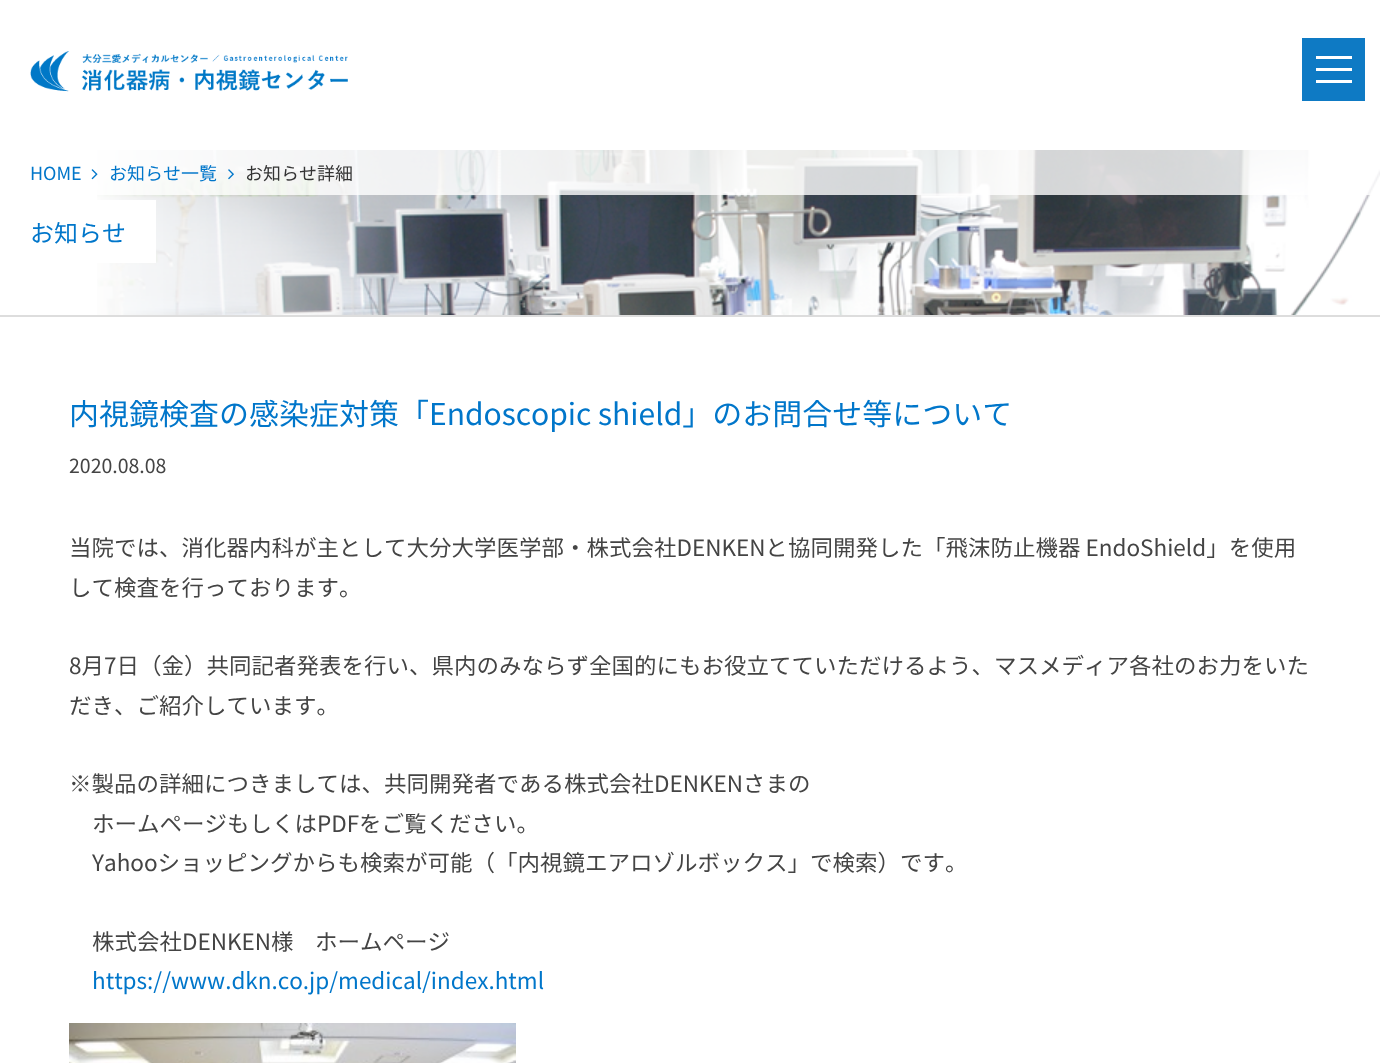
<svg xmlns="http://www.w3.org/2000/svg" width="1380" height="1063">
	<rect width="100%" height="100%" fill="#FFFFFF" />
	<image x="30" y="51" width="318" height="41" href="assets/img1.png" />
	<rect x="1302" y="38" width="63" height="63" fill="#0E7AC4" />
	<rect x="1316" y="56" width="36" height="3" fill="#FFFFFF" />
	<rect x="1316" y="68" width="36" height="3" fill="#FFFFFF" />
	<rect x="1316" y="80" width="36" height="3" fill="#FFFFFF" />
	<image x="97" y="150" width="1283" height="165" href="assets/img2.png" />
	<rect x="0" y="315" width="1380" height="2" fill="#DDDDDD" />
	<rect x="97" y="150" width="1283" height="45" fill="#FFFFFF" fill-opacity="0.8" />
	<text x="30" y="180" font-family="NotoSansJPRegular" font-size="18" fill="#0076CA">HOME</text>
	<image x="91" y="169" width="7" height="11" href="assets/img3.png" />
	<text x="109" y="180" font-family="NotoSansJPRegular" font-size="18" fill="#0076CA">お知らせ一覧</text>
	<image x="228" y="169" width="6" height="11" href="assets/img4.png" />
	<text x="245" y="180" font-family="NotoSansJPRegular" font-size="18" fill="#333333">お知らせ詳細</text>
	<rect x="97" y="200" width="59" height="63" fill="#FFFFFF" />
	<text x="30" y="242" font-family="NotoSansJPRegular" font-size="24" fill="#0076CA">お知らせ</text>
	<text x="69" y="425" font-family="NotoSansJPRegular" font-size="30" fill="#0076CA">内視鏡検査の感染症対策「Endoscopic shield」のお問合せ等について</text>
	<text x="69" y="473" font-family="NotoSansJPRegular" font-size="19.5" fill="#444444">2020.08.08</text>
	<g font-family="NotoSansJPRegular" font-size="22.5" fill="#444444">
		<text x="69" y="556">当院では、消化器内科が主として大分大学医学部・株式会社DENKENと協同開発した「飛沫防止機器 EndoShield」を使用</text>
		<text x="69" y="596">して検査を行っております。</text>
		<text x="69" y="674">8月7日（金）共同記者発表を行い、県内のみならず全国的にもお役立てていただけるよう、マスメディア各社のお力をいた</text>
		<text x="69" y="714">だき、ご紹介しています。</text>
		<text x="69" y="792">※製品の詳細につきましては、共同開発者である株式会社DENKENさまの</text>
		<text x="92" y="832">ホームページもしくはPDFをご覧ください。</text>
		<text x="92" y="871">Yahooショッピングからも検索が可能（「内視鏡エアロゾルボックス」で検索）です。</text>
		<text x="92" y="950">株式会社DENKEN様</text>
		<text x="315" y="950">ホームページ</text>
	</g>
	<text x="92" y="989" font-family="NotoSansJPRegular" font-size="22.5" fill="#0076CA">https://www.dkn.co.jp/medical/index.html</text>
	<image x="69" y="1023" width="447" height="40" href="assets/img5.png" />
</svg>
